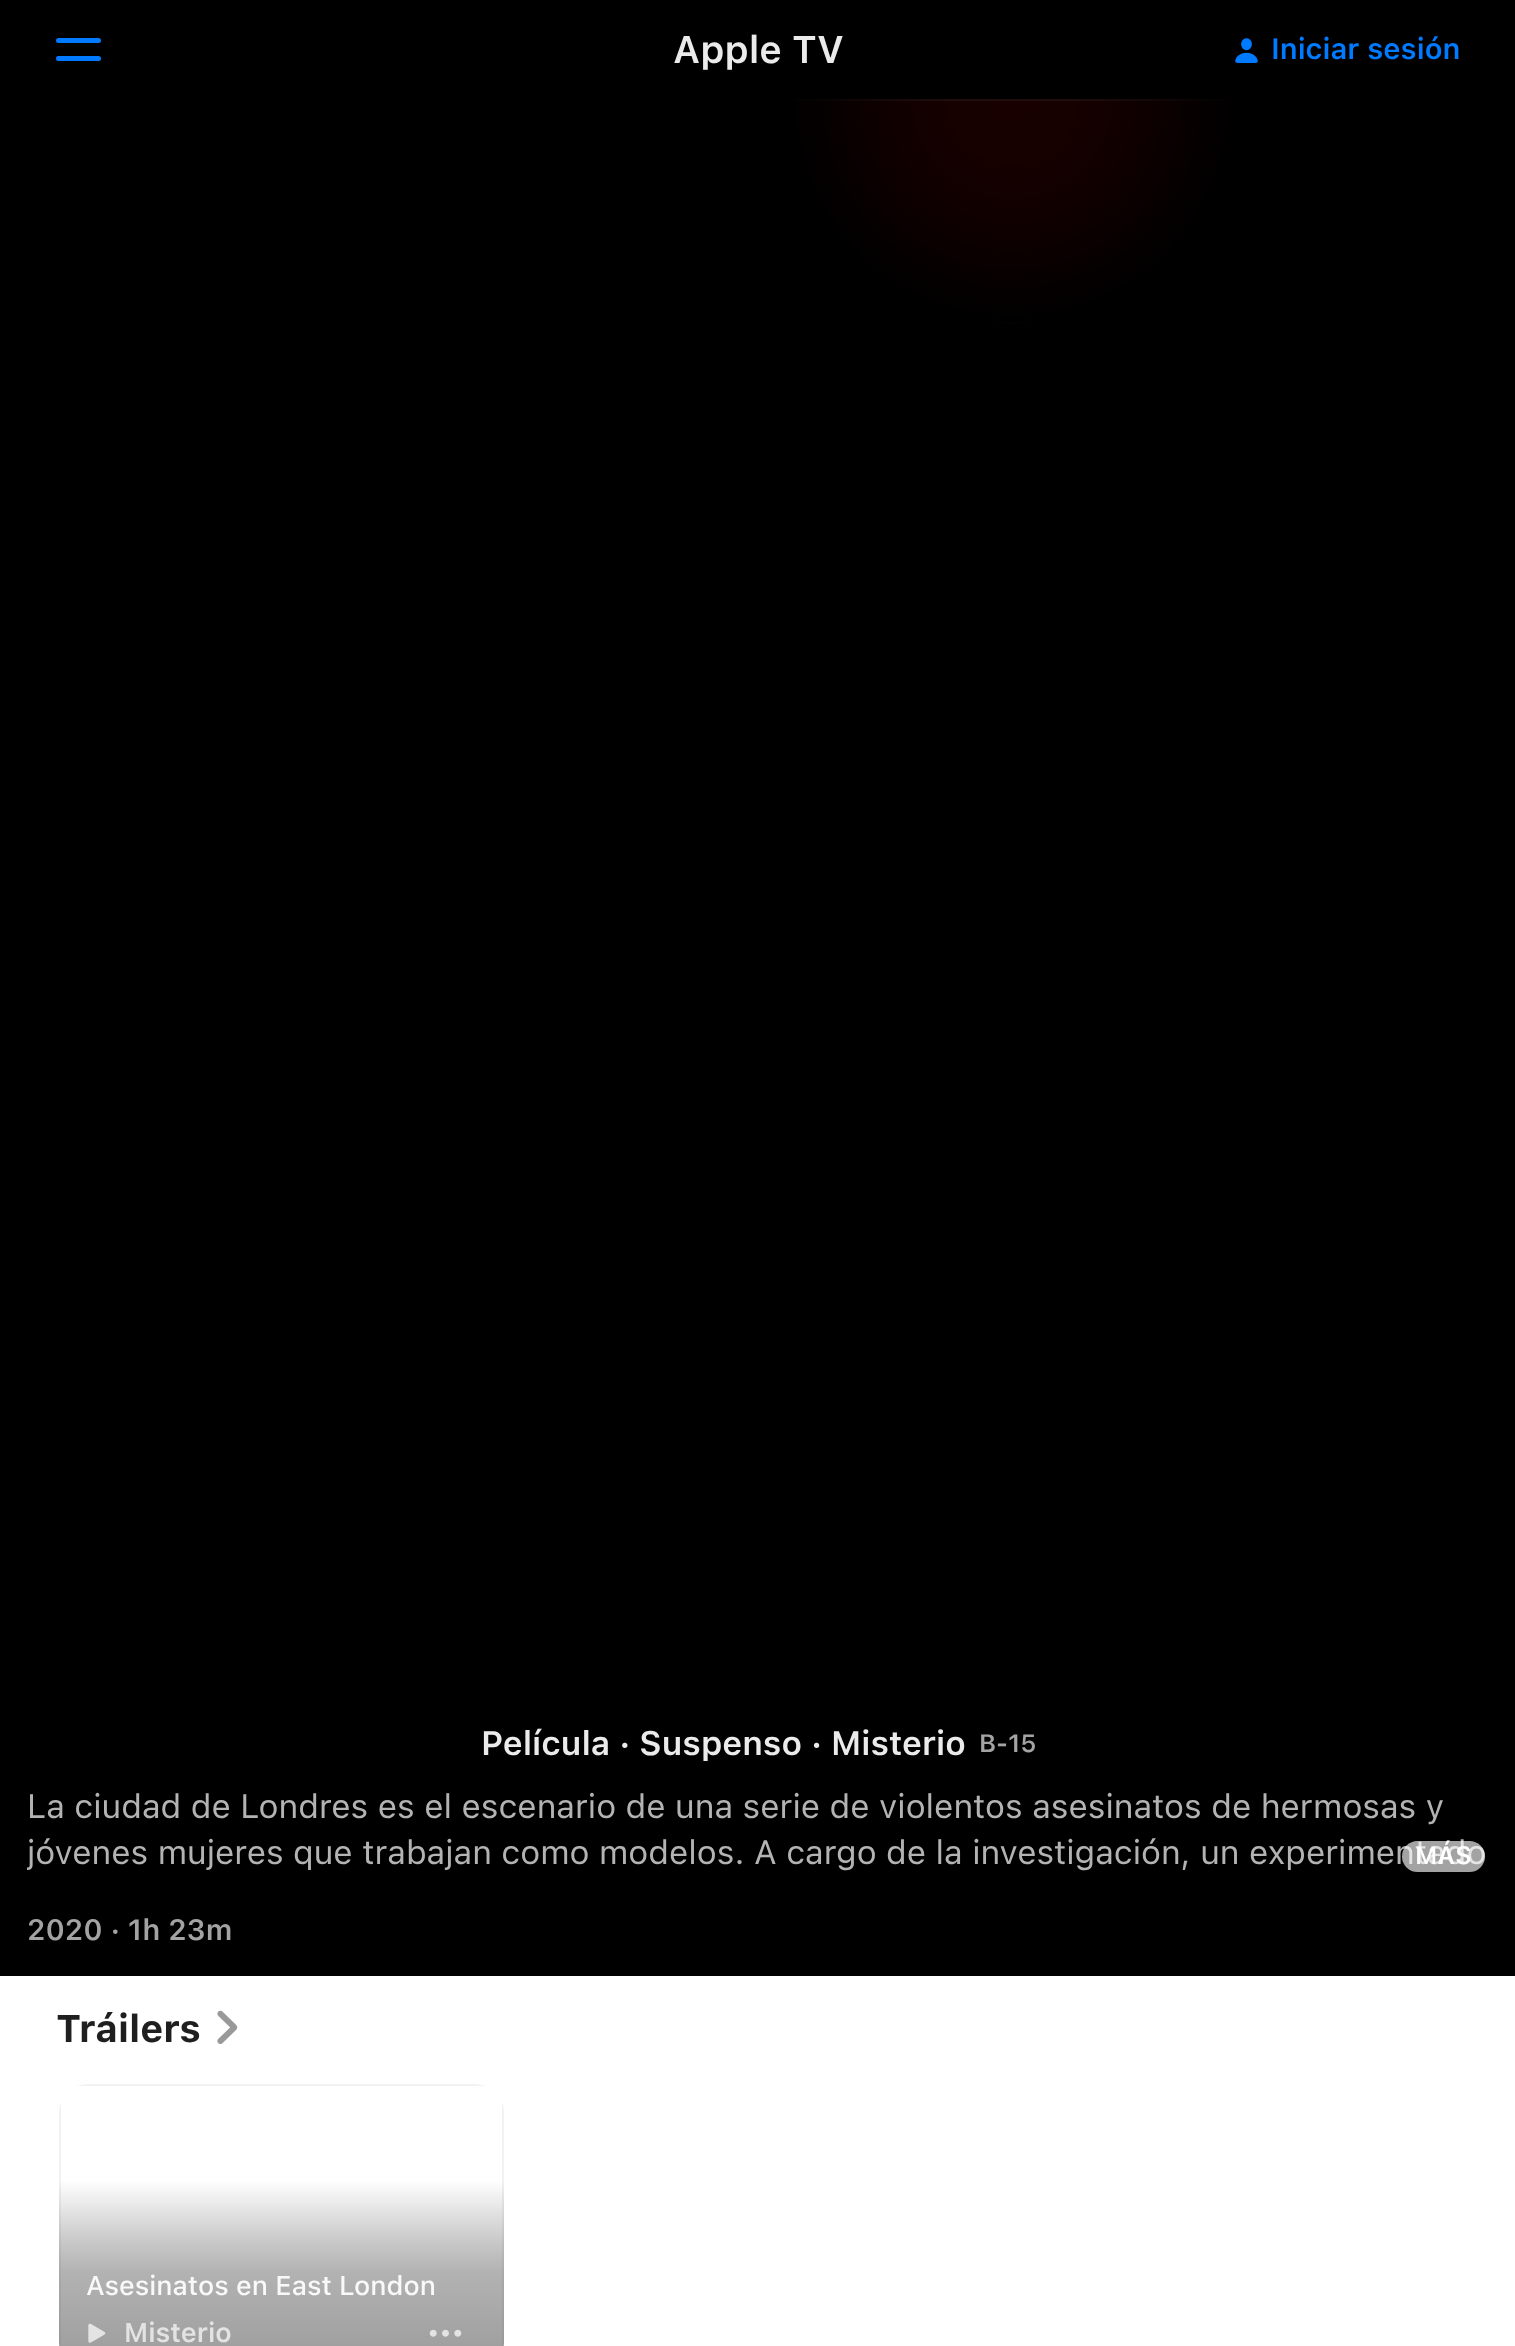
<svg xmlns="http://www.w3.org/2000/svg" width="1515" height="2346">
	<defs>
		<clipPath id="clip1"><rect x="0" y="99" width="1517" height="1877" /></clipPath>
		<radialGradient id="g1" gradientUnits="userSpaceOnUse" cx="1012" cy="99" r="225"><stop offset="0" stop-color="#000000" stop-opacity="0" /><stop offset="0.19" stop-color="#000000" stop-opacity="0.04" /><stop offset="0.36" stop-color="#000000" stop-opacity="0.15" /><stop offset="0.51" stop-color="#000000" stop-opacity="0.3" /><stop offset="0.53" stop-color="#000000" stop-opacity="0.33" /><stop offset="0.65" stop-color="#000000" stop-opacity="0.49" /><stop offset="0.77" stop-color="#000000" stop-opacity="0.67" /><stop offset="0.89" stop-color="#000000" stop-opacity="0.85" /><stop offset="1" stop-color="#000000" /></radialGradient>
		<clipPath id="clip2"><rect x="27" y="1784" width="1463" height="93" /></clipPath>
		<linearGradient id="g2" gradientUnits="userSpaceOnUse" x1="281" y1="2180" x2="281" y2="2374"><stop offset="0" stop-color="#000000" stop-opacity="0" /><stop offset="0.19" stop-color="#000000" stop-opacity="0.13" /><stop offset="0.31" stop-color="#000000" stop-opacity="0.21" /><stop offset="0.47" stop-color="#000000" stop-opacity="0.3" /><stop offset="1" stop-color="#000000" stop-opacity="0.4" /></linearGradient>
	</defs>
	<rect width="100%" height="100%" fill="#FFFFFF" />
	<rect x="0" y="0" width="1515" height="99" fill="#000000" />
	<rect x="56" y="38" width="45" height="5" rx="2.5" fill="#007AFF" />
	<rect x="56" y="56" width="45" height="5" rx="2.5" fill="#007AFF" />
	<text x="673" y="63" font-family="SF" font-size="38.25" font-weight="600" fill="#EBEBEB">Apple TV</text>
	<image x="1235" y="38" width="23" height="25" href="assets/img1.png" />
	<text x="1271" y="59" font-family="SF" font-size="29.25" font-weight="600" fill="#007AFF">Iniciar sesión</text>
	<rect x="788" y="101" width="448" height="221" fill="#180000" />
	<g clip-path="url(#clip1)">
		<rect x="1" y="100" width="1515" height="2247" fill="none" stroke="#220D0D" stroke-width="2" />
	</g>
	<rect x="0" y="99" width="1515" height="1877" fill="url(#g1)" />
	<text x="481" y="1755" font-family="SF" font-size="33.75" font-weight="600" fill="#EBEBEB">Película · Suspenso · Misterio</text>
	<text x="979" y="1752" font-family="SF" font-size="25" font-weight="600" fill="#A3A3A3">B-15</text>
	<text x="27" y="1818" font-family="SF" font-size="33.75" fill="#B3B3B3">La ciudad de Londres es el escenario de una serie de violentos asesinatos de hermosas y</text>
	<g clip-path="url(#clip2)">
		<text x="27" y="1864" font-family="SF" font-size="33.75" fill="#B3B3B3">jóvenes mujeres que trabajan como modelos. A cargo de la investigación, un experimentado</text>
	</g>
	<rect x="1402" y="1841" width="83" height="31" rx="15.5" fill="#FFFFFF" fill-opacity="0.64" />
	<text x="1415" y="1864" font-family="SF" font-size="25" font-weight="600" fill="#FFFFFF">MÁS</text>
	<text x="27" y="1940" font-family="SF" font-size="29.25" font-weight="600" fill="#A3A3A3">2020 · 1h 23m</text>
	<text x="56" y="2042" font-family="SF" font-size="38.25" font-weight="700" fill="#1F1F1F">Tráilers</text>
	<image x="217" y="2010" width="21" height="34" href="assets/img2.png" />
	<path d="M59 2113V2345C59 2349 60 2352 61 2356V2102C60 2106 59 2109 59 2113ZM88 2084C84 2084 81 2085 77 2086H486C482 2085 479 2084 475 2084ZM504 2113C504 2109 503 2106 502 2102V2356C503 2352 504 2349 504 2345ZM475 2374C479 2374 482 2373 486 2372H77C81 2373 84 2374 88 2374Z" fill="#F2F2F2" fill-rule="evenodd" />
	<path d="M59 2180H504V2342C504 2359.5 489.5 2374 472 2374H91C73.5 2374 59 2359.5 59 2342Z" fill="url(#g2)" />
	<text x="86" y="2295" font-family="SF" font-size="27" font-weight="500" fill="#F9F9F9">Asesinatos en East London</text>
	<image x="88" y="2323" width="18" height="20" href="assets/img3.png" />
	<text x="124" y="2342" font-family="SF" font-size="27" font-weight="600" fill="#E3E3E3">Misterio</text>
	<image x="429" y="2329" width="33" height="8" href="assets/img4.png" />
</svg>
